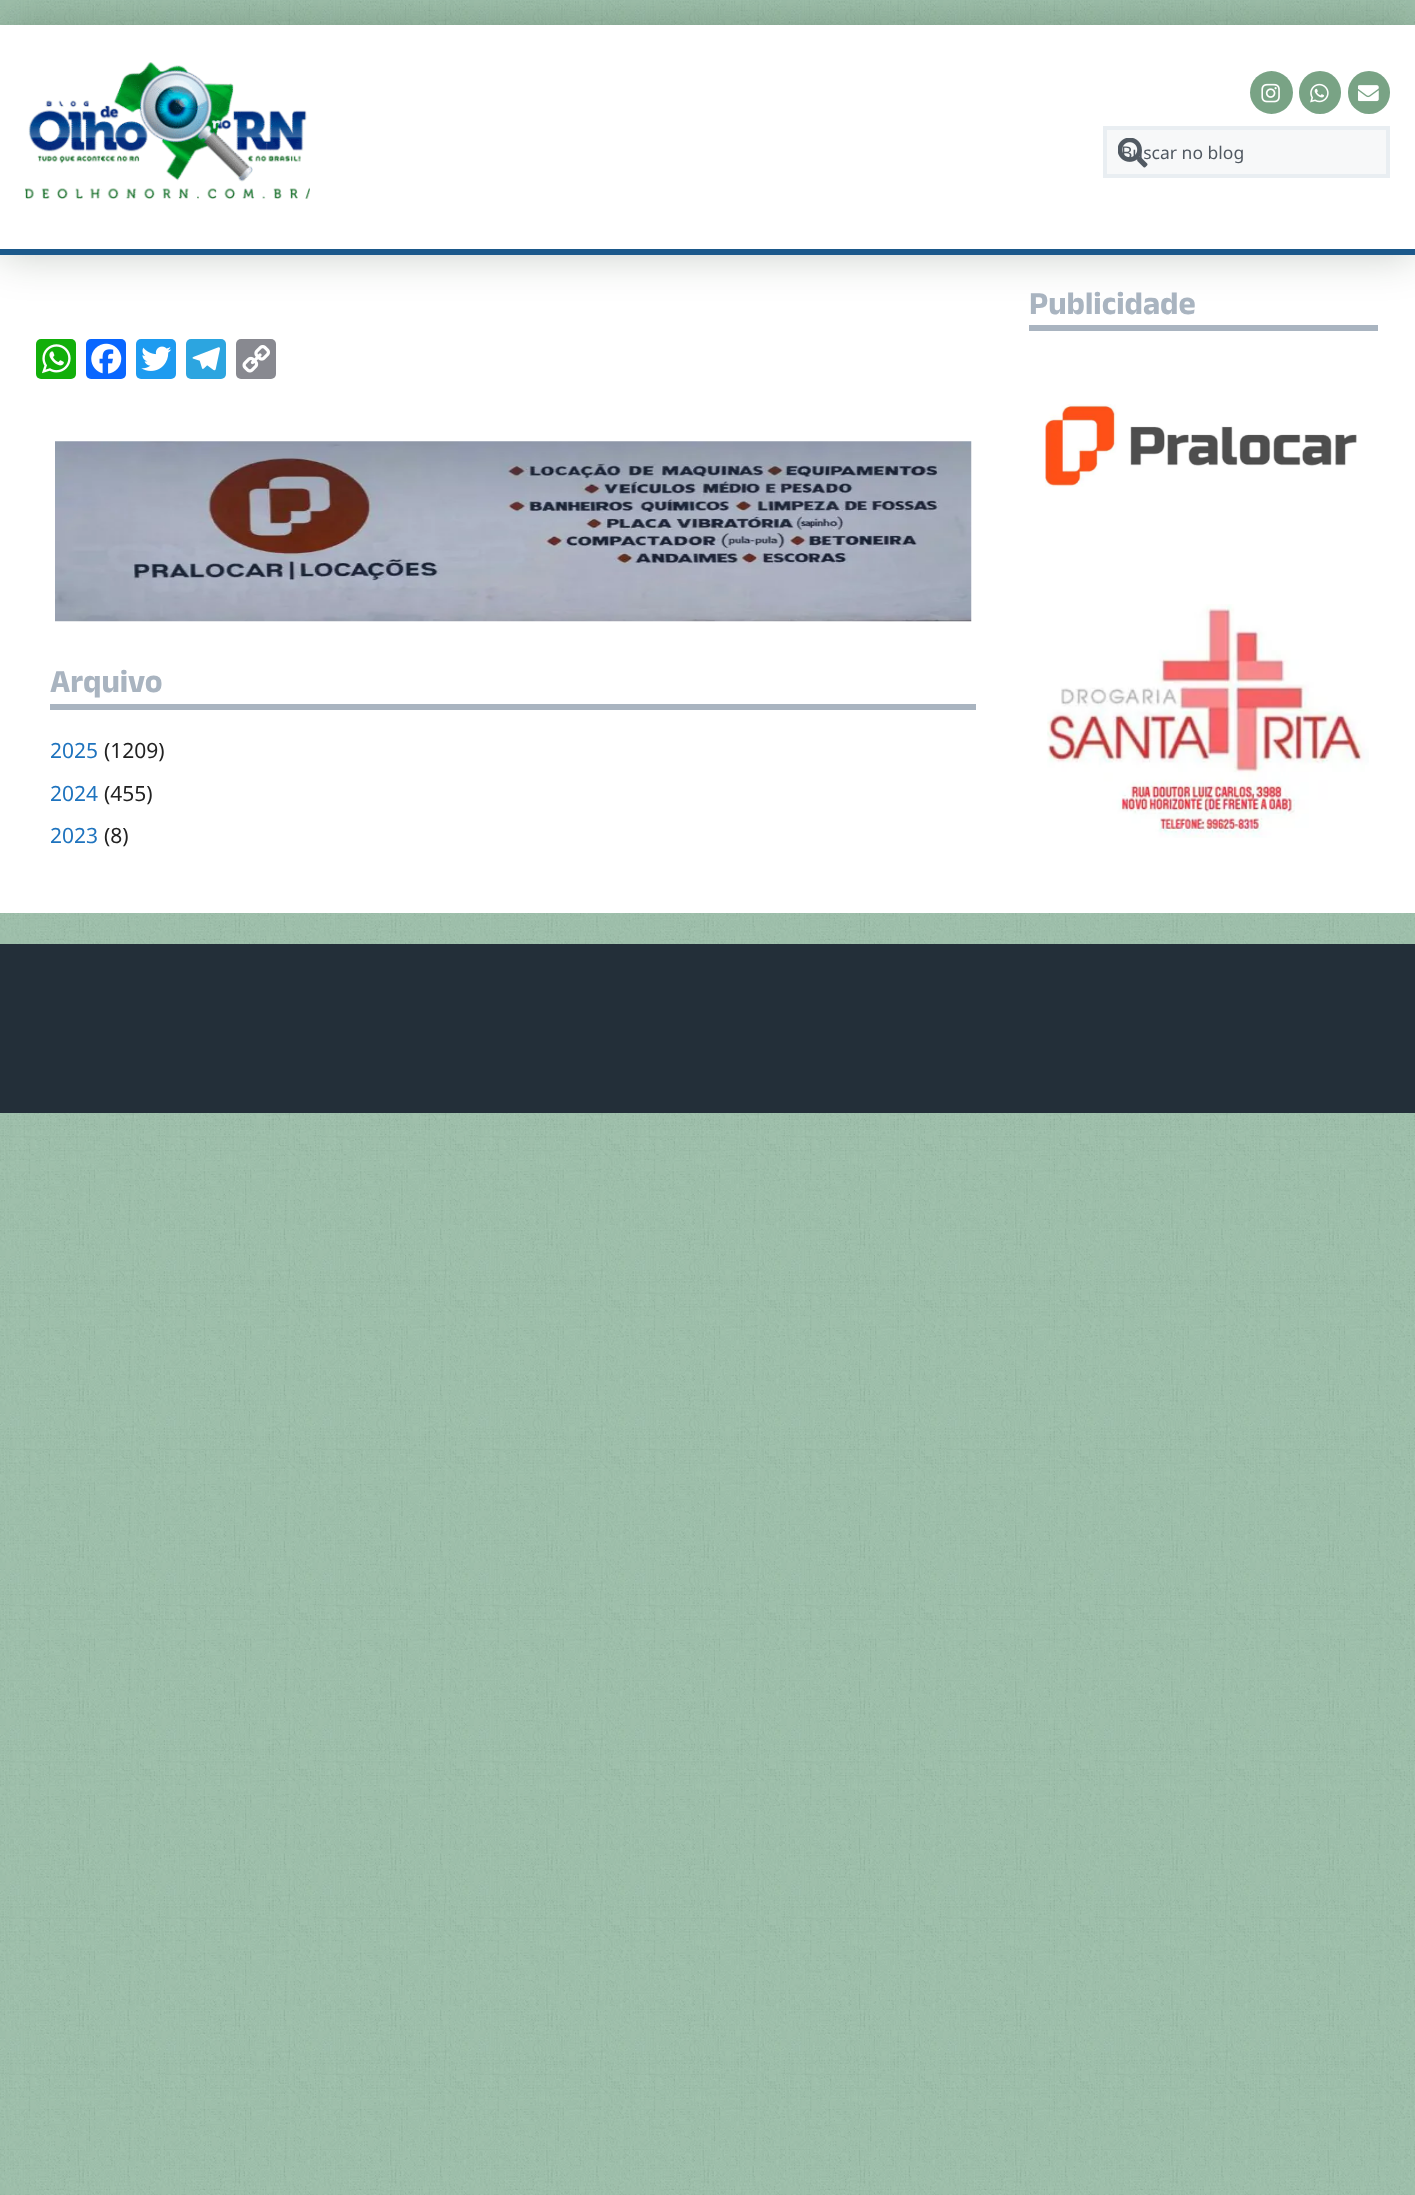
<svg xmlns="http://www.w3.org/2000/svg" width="1415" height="2195">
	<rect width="100%" height="100%" fill="#FFFFFF" />
	<image x="0" y="0" width="1415" height="2195" href="assets/img1.png" />
	<rect x="0" y="255" width="1415" height="658" fill="#FFFFFF" />
	<rect x="0" y="25" width="1415" height="230" fill="#011D01" fill-opacity="0.22" filter="blur(22px)" />
	<rect x="0" y="25" width="1415" height="224" fill="#FFFFFF" />
	<image x="25" y="62" width="285" height="137" href="assets/img2.png" />
	<circle cx="1271.5" cy="92.5" r="21.5" fill="#79A385" />
	<image x="1261" y="83" width="19" height="20" href="assets/img3.png" />
	<rect x="1299" y="71" width="42" height="43" rx="21" fill="#79A385" />
	<image x="1310" y="83" width="19" height="20" href="assets/img4.png" />
	<rect x="1348" y="71" width="42" height="43" rx="21" fill="#79A385" />
	<image x="1358" y="85" width="21" height="17" href="assets/img5.png" />
	<rect x="1105" y="128" width="283" height="48" fill="#F7F8F9" stroke="#E9EEF2" stroke-width="4" />
	<text x="1121" y="159" font-family="Noto Sans" font-size="17.5" fill="#515962">Buscar no blog</text>
	<image x="1118" y="138" width="30" height="30" href="assets/img6.png" />
	<rect x="0" y="249" width="1415" height="6" fill="#1B598B" />
	<rect x="1029" y="325" width="349" height="6" fill="#A9B4C0" />
	<text x="1029" y="314" font-family="Anek Gurmukhi" font-size="32.5" font-weight="700" fill="#A9B4C0">Publicidade</text>
	<image x="1045" y="404" width="312" height="83" href="assets/img7.png" />
	<image x="1047" y="604" width="322" height="234" href="assets/img8.png" />
	<rect x="36" y="339" width="40" height="40" rx="5" fill="#12AF0A" />
	<image x="42" y="344" width="29" height="30" href="assets/img9.png" />
	<rect x="86" y="339" width="40" height="40" rx="5" fill="#0866FF" />
	<image x="91" y="343" width="31" height="31" href="assets/img10.png" />
	<rect x="136" y="339" width="40" height="40" rx="5" fill="#1D9BF0" />
	<image x="141" y="346" width="31" height="25" href="assets/img11.png" />
	<rect x="186" y="339" width="40" height="40" rx="5" fill="#2CA5E0" />
	<image x="192" y="347" width="28" height="24" href="assets/img12.png" />
	<rect x="236" y="339" width="40" height="40" rx="5" fill="#888990" />
	<image x="242" y="345" width="28" height="28" href="assets/img13.png" />
	<image x="55" y="441" width="917" height="181" href="assets/img14.png" />
	<rect x="50" y="704" width="926" height="6" fill="#A9B4C0" />
	<text x="50" y="692" font-family="Anek Gurmukhi" font-size="32.5" font-weight="700" fill="#A9B4C0">Arquivo</text>
	<text x="50" y="758" font-family="Noto Sans" font-size="21" fill="#1E73BE">2025</text>
	<text x="104" y="758" font-family="Noto Sans" font-size="21" fill="#222222">(1209)</text>
	<text x="50" y="801" font-family="Noto Sans" font-size="21" fill="#1E73BE">2024</text>
	<text x="104" y="801" font-family="Noto Sans" font-size="21" fill="#222222">(455)</text>
	<text x="50" y="843" font-family="Noto Sans" font-size="21" fill="#1E73BE">2023</text>
	<text x="104" y="843" font-family="Noto Sans" font-size="21" fill="#222222">(8)</text>
	<rect x="0" y="944" width="1415" height="169" fill="#232F39" />
</svg>
